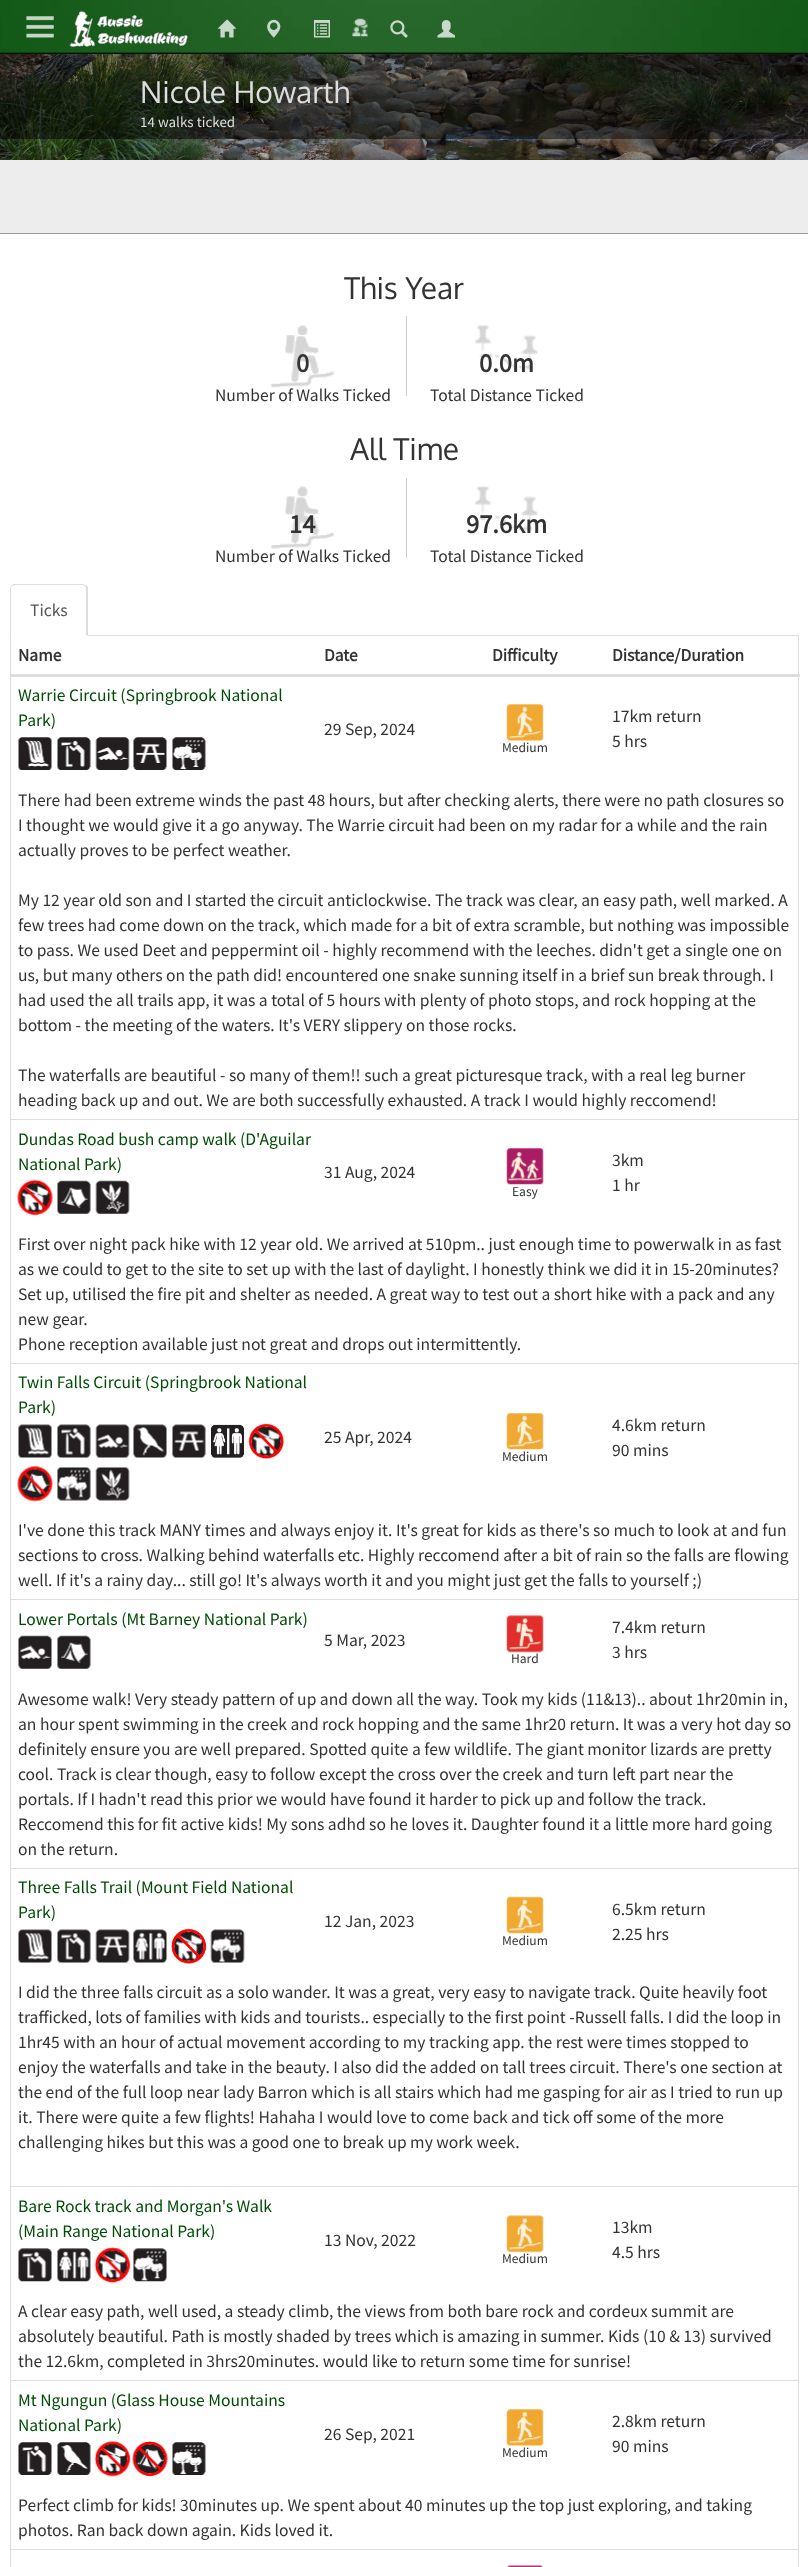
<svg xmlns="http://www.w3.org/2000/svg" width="808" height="2567">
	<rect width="100%" height="100%" fill="#FFFFFF" />
	<rect x="0" y="53" width="808" height="1" fill="#080808" />
	<rect x="0" y="52" width="808" height="1" fill="#004C05" />
	<image x="0" y="0" width="808" height="52" href="assets/img1.png" />
	<image x="26" y="16" width="28" height="22" href="assets/img2.png" />
	<image x="69" y="11" width="119" height="36" href="assets/img3.png" />
	<image x="217" y="19" width="20" height="19" href="assets/img4.png" />
	<image x="267" y="19" width="14" height="19" href="assets/img5.png" />
	<image x="313" y="20" width="17" height="18" href="assets/img6.png" />
	<image x="352" y="18" width="16" height="19" href="assets/img7.png" />
	<image x="390" y="20" width="18" height="18" href="assets/img8.png" />
	<image x="437" y="20" width="18" height="18" href="assets/img9.png" />
	<image x="0" y="54" width="808" height="106" href="assets/img10.png" />
	<rect x="0" y="54" width="808" height="85" fill="#000000" fill-opacity="0.5" />
	<text x="140" y="103" font-family="Oxygen" font-size="30" fill="#DDDDDD">Nicole Howarth</text>
	<text x="140" y="127" font-family="Source Sans Pro" font-size="15" fill="#DDDDDD">14 walks ticked</text>
	<rect x="0" y="160" width="808" height="73" fill="#EEEDED" />
	<rect x="0" y="233" width="808" height="1" fill="#999999" />
	<text x="344" y="299" font-family="Oxygen" font-size="30" fill="#333333">This Year</text>
	<image x="271" y="325" width="63" height="63" href="assets/img11.png" />
	<text x="296" y="372" font-family="Source Sans Pro" font-size="26.5" font-weight="700" fill="#333333">0</text>
	<text x="215" y="401" font-family="Source Sans Pro" font-size="17.5" fill="#333333">Number of Walks Ticked</text>
	<image x="475" y="325" width="63" height="45" href="assets/img12.png" />
	<rect x="406" y="316" width="1" height="80" fill="#CCCCCC" />
	<text x="479" y="372" font-family="Source Sans Pro" font-size="26.5" font-weight="700" fill="#333333">0.0m</text>
	<text x="430" y="401" font-family="Source Sans Pro" font-size="17.5" fill="#333333">Total Distance Ticked</text>
	<text x="350" y="460" font-family="Oxygen" font-size="30" fill="#333333">All Time</text>
	<image x="271" y="486" width="63" height="63" href="assets/img13.png" />
	<text x="289" y="533" font-family="Source Sans Pro" font-size="26.5" font-weight="700" fill="#333333">14</text>
	<text x="215" y="562" font-family="Source Sans Pro" font-size="17.5" fill="#333333">Number of Walks Ticked</text>
	<image x="475" y="486" width="63" height="46" href="assets/img14.png" />
	<rect x="406" y="478" width="1" height="80" fill="#CCCCCC" />
	<text x="466" y="533" font-family="Source Sans Pro" font-size="26.5" font-weight="700" fill="#333333">97.6km</text>
	<text x="430" y="562" font-family="Source Sans Pro" font-size="17.5" fill="#333333">Total Distance Ticked</text>
	<rect x="88" y="635" width="711" height="1" fill="#DDDDDD" />
	<path d="M15 584C14 584 12 584 12 585V586L15 585H83L85 586L86 585L82 584Z" fill="#DDDDDD" />
	<path d="M86 585L88 587V636L86 635V589C86 588 86 587 85 586Z" fill="#DDDDDD" />
	<path d="M10 589V636L11 635V588L12 586V585C11 586 10 587 10 589Z" fill="#DDDDDD" />
	<text x="30" y="616" font-family="Source Sans Pro" font-size="17.5" fill="#555555">Ticks</text>
	<rect x="798" y="636" width="1" height="1931" fill="#DDDDDD" />
	<rect x="10" y="636" width="1" height="1931" fill="#DDDDDD" />
	<g font-family="Source Sans Pro" font-size="17.5" font-weight="700" fill="#333333">
		<text x="18" y="661">Name</text>
		<text x="324" y="661">Date</text>
		<text x="492" y="661">Difficulty</text>
		<text x="612" y="661">Distance/Duration</text>
	</g>
	<rect x="10" y="674" width="790" height="3" fill="#DDDDDD" />
	<g font-family="Source Sans Pro" font-size="17.5" fill="#004C05">
		<text x="18" y="701">Warrie Circuit (Springbrook National</text>
		<text x="18" y="726">Park)</text>
	</g>
	<image x="18" y="737" width="34" height="33" href="assets/img15.png" />
	<image x="57" y="737" width="34" height="33" href="assets/img16.png" />
	<image x="95" y="737" width="35" height="33" href="assets/img17.png" />
	<image x="133" y="737" width="34" height="33" href="assets/img18.png" />
	<image x="172" y="737" width="34" height="33" href="assets/img19.png" />
	<g font-family="Source Sans Pro" font-size="17.5" fill="#333333">
		<text x="324" y="735">29 Sep, 2024</text>
		<text x="612" y="722">17km return</text>
		<text x="612" y="747">5 hrs</text>
	</g>
	<image x="506" y="704" width="38" height="38" href="assets/img20.png" />
	<text x="502" y="752" font-family="Source Sans Pro" font-size="13.5" fill="#333333">Medium</text>
	<g font-family="Source Sans Pro" font-size="17.5" fill="#333333">
		<text x="18" y="806">There had been extreme winds the past 48 hours, but after checking alerts, there were no path closures so</text>
		<text x="18" y="831">I thought we would give it a go anyway. The Warrie circuit had been on my radar for a while and the rain</text>
		<text x="18" y="856">actually proves to be perfect weather.</text>
		<text x="18" y="906">My 12 year old son and I started the circuit anticlockwise. The track was clear, an easy path, well marked. A</text>
		<text x="18" y="931">few trees had come down on the track, which made for a bit of extra scramble, but nothing was impossible</text>
		<text x="18" y="956">to pass. We used Deet and peppermint oil - highly recommend with the leeches. didn't get a single one on</text>
		<text x="18" y="981">us, but many others on the path did! encountered one snake sunning itself in a brief sun break through. I</text>
		<text x="18" y="1006">had used the all trails app, it was a total of 5 hours with plenty of photo stops, and rock hopping at the</text>
		<text x="18" y="1031">bottom - the meeting of the waters. It's VERY slippery on those rocks.</text>
		<text x="18" y="1081">The waterfalls are beautiful - so many of them!! such a great picturesque track, with a real leg burner</text>
		<text x="18" y="1106">heading back up and out. We are both successfully exhausted. A track I would highly reccomend!</text>
	</g>
	<rect x="10" y="1119" width="789" height="1" fill="#DDDDDD" />
	<g font-family="Source Sans Pro" font-size="17.5" fill="#004C05">
		<text x="18" y="1145">Dundas Road bush camp walk (D'Aguilar</text>
		<text x="18" y="1170">National Park)</text>
	</g>
	<image x="20" y="1180" width="30" height="32" href="assets/img21.png" />
	<image x="17" y="1179" width="36" height="37" href="assets/img22.png" />
	<image x="57" y="1180" width="34" height="34" href="assets/img23.png" />
	<image x="95" y="1180" width="35" height="34" href="assets/img24.png" />
	<g font-family="Source Sans Pro" font-size="17.5" fill="#333333">
		<text x="324" y="1178">31 Aug, 2024</text>
		<text x="612" y="1166">3km</text>
		<text x="612" y="1191">1 hr</text>
	</g>
	<image x="506" y="1148" width="38" height="37" href="assets/img25.png" />
	<text x="512" y="1196" font-family="Source Sans Pro" font-size="13.5" fill="#333333">Easy</text>
	<g font-family="Source Sans Pro" font-size="17.5" fill="#333333">
		<text x="18" y="1250">First over night pack hike with 12 year old. We arrived at 510pm.. just enough time to powerwalk in as fast</text>
		<text x="18" y="1275">as we could to get to the site to set up with the last of daylight. I honestly think we did it in 15-20minutes?</text>
		<text x="18" y="1300">Set up, utilised the fire pit and shelter as needed. A great way to test out a short hike with a pack and any</text>
		<text x="18" y="1325">new gear.</text>
		<text x="18" y="1350">Phone reception available just not great and drops out intermittently.</text>
	</g>
	<rect x="10" y="1363" width="789" height="1" fill="#DDDDDD" />
	<g font-family="Source Sans Pro" font-size="17.5" fill="#004C05">
		<text x="18" y="1388">Twin Falls Circuit (Springbrook National</text>
		<text x="18" y="1413">Park)</text>
	</g>
	<image x="18" y="1424" width="34" height="34" href="assets/img26.png" />
	<image x="57" y="1424" width="34" height="34" href="assets/img27.png" />
	<image x="95" y="1424" width="35" height="34" href="assets/img28.png" />
	<image x="133" y="1424" width="34" height="34" href="assets/img29.png" />
	<image x="172" y="1424" width="34" height="34" href="assets/img30.png" />
	<image x="211" y="1424" width="33" height="34" href="assets/img31.png" />
	<image x="252" y="1427" width="29" height="29" href="assets/img32.png" />
	<image x="248" y="1423" width="36" height="36" href="assets/img33.png" />
	<image x="20" y="1466" width="30" height="35" href="assets/img34.png" />
	<image x="17" y="1465" width="36" height="37" href="assets/img35.png" />
	<image x="57" y="1467" width="34" height="34" href="assets/img36.png" />
	<image x="95" y="1467" width="35" height="34" href="assets/img37.png" />
	<g font-family="Source Sans Pro" font-size="17.5" fill="#333333">
		<text x="324" y="1443">25 Apr, 2024</text>
		<text x="612" y="1431">4.6km return</text>
		<text x="612" y="1456">90 mins</text>
	</g>
	<image x="506" y="1413" width="38" height="37" href="assets/img38.png" />
	<text x="502" y="1461" font-family="Source Sans Pro" font-size="13.5" fill="#333333">Medium</text>
	<g font-family="Source Sans Pro" font-size="17.5" fill="#333333">
		<text x="18" y="1536">I've done this track MANY times and always enjoy it. It's great for kids as there's so much to look at and fun</text>
		<text x="18" y="1561">sections to cross. Walking behind waterfalls etc. Highly reccomend after a bit of rain so the falls are flowing</text>
		<text x="18" y="1586">well. If it's a rainy day... still go! It's always worth it and you might just get the falls to yourself ;)</text>
	</g>
	<rect x="10" y="1599" width="789" height="1" fill="#DDDDDD" />
	<text x="18" y="1625" font-family="Source Sans Pro" font-size="17.5" fill="#004C05">Lower Portals (Mt Barney National Park)</text>
	<image x="18" y="1635" width="34" height="34" href="assets/img39.png" />
	<image x="57" y="1635" width="34" height="34" href="assets/img23.png" />
	<g font-family="Source Sans Pro" font-size="17.5" fill="#333333">
		<text x="324" y="1646">5 Mar, 2023</text>
		<text x="612" y="1633">7.4km return</text>
		<text x="612" y="1658">3 hrs</text>
	</g>
	<image x="506" y="1615" width="38" height="38" href="assets/img40.png" />
	<text x="511" y="1663" font-family="Source Sans Pro" font-size="13.5" fill="#333333">Hard</text>
	<g font-family="Source Sans Pro" font-size="17.5" fill="#333333">
		<text x="18" y="1705">Awesome walk! Very steady pattern of up and down all the way. Took my kids (11&amp;13).. about 1hr20min in,</text>
		<text x="18" y="1730">an hour spent swimming in the creek and rock hopping and the same 1hr20 return. It was a very hot day so</text>
		<text x="18" y="1755">definitely ensure you are well prepared. Spotted quite a few wildlife. The giant monitor lizards are pretty</text>
		<text x="18" y="1780">cool. Track is clear though, easy to follow except the cross over the creek and turn left part near the</text>
		<text x="18" y="1805">portals. If I hadn't read this prior we would have found it harder to pick up and follow the track.</text>
		<text x="18" y="1830">Reccomend this for fit active kids! My sons adhd so he loves it. Daughter found it a little more hard going</text>
		<text x="18" y="1855">on the return.</text>
	</g>
	<rect x="10" y="1868" width="789" height="1" fill="#DDDDDD" />
	<g font-family="Source Sans Pro" font-size="17.5" fill="#004C05">
		<text x="18" y="1893">Three Falls Trail (Mount Field National</text>
		<text x="18" y="1918">Park)</text>
	</g>
	<image x="18" y="1929" width="34" height="34" href="assets/img26.png" />
	<image x="57" y="1929" width="34" height="34" href="assets/img27.png" />
	<image x="95" y="1929" width="35" height="34" href="assets/img41.png" />
	<image x="133" y="1929" width="34" height="34" href="assets/img42.png" />
	<image x="174" y="1932" width="29" height="29" href="assets/img43.png" />
	<image x="171" y="1928" width="36" height="36" href="assets/img44.png" />
	<image x="210" y="1929" width="35" height="34" href="assets/img45.png" />
	<g font-family="Source Sans Pro" font-size="17.5" fill="#333333">
		<text x="324" y="1927">12 Jan, 2023</text>
		<text x="612" y="1915">6.5km return</text>
		<text x="612" y="1940">2.25 hrs</text>
	</g>
	<image x="506" y="1896" width="38" height="38" href="assets/img46.png" />
	<text x="502" y="1945" font-family="Source Sans Pro" font-size="13.5" fill="#333333">Medium</text>
	<g font-family="Source Sans Pro" font-size="17.5" fill="#333333">
		<text x="18" y="1998">I did the three falls circuit as a solo wander. It was a great, very easy to navigate track. Quite heavily foot</text>
		<text x="18" y="2023">trafficked, lots of families with kids and tourists.. especially to the first point -Russell falls. I did the loop in</text>
		<text x="18" y="2048">1hr45 with an hour of actual movement according to my tracking app. the rest were times stopped to</text>
		<text x="18" y="2073">enjoy the waterfalls and take in the beauty. I also did the added on tall trees circuit. There's one section at</text>
		<text x="18" y="2098">the end of the full loop near lady Barron which is all stairs which had me gasping for air as I tried to run up</text>
		<text x="18" y="2123">it. There were quite a few flights! Hahaha I would love to come back and tick off some of the more</text>
		<text x="18" y="2148">challenging hikes but this was a good one to break up my work week.</text>
	</g>
	<rect x="10" y="2186" width="789" height="1" fill="#DDDDDD" />
	<g font-family="Source Sans Pro" font-size="17.5" fill="#004C05">
		<text x="18" y="2212">Bare Rock track and Morgan's Walk</text>
		<text x="18" y="2237">(Main Range National Park)</text>
	</g>
	<image x="18" y="2248" width="34" height="34" href="assets/img47.png" />
	<image x="57" y="2248" width="34" height="34" href="assets/img48.png" />
	<image x="95" y="2248" width="35" height="33" href="assets/img49.png" />
	<image x="94" y="2247" width="37" height="37" href="assets/img50.png" />
	<image x="133" y="2248" width="34" height="34" href="assets/img51.png" />
	<g font-family="Source Sans Pro" font-size="17.5" fill="#333333">
		<text x="324" y="2246">13 Nov, 2022</text>
		<text x="612" y="2233">13km</text>
		<text x="612" y="2258">4.5 hrs</text>
	</g>
	<image x="506" y="2215" width="38" height="38" href="assets/img52.png" />
	<text x="502" y="2263" font-family="Source Sans Pro" font-size="13.5" fill="#333333">Medium</text>
	<g font-family="Source Sans Pro" font-size="17.5" fill="#333333">
		<text x="18" y="2317">A clear easy path, well used, a steady climb, the views from both bare rock and cordeux summit are</text>
		<text x="18" y="2342">absolutely beautiful. Path is mostly shaded by trees which is amazing in summer. Kids (10 &amp; 13) survived</text>
		<text x="18" y="2367">the 12.6km, completed in 3hrs20minutes. would like to return some time for sunrise!</text>
	</g>
	<rect x="10" y="2380" width="789" height="1" fill="#DDDDDD" />
	<g font-family="Source Sans Pro" font-size="17.5" fill="#004C05">
		<text x="18" y="2406">Mt Ngungun (Glass House Mountains</text>
		<text x="18" y="2431">National Park)</text>
	</g>
	<image x="18" y="2442" width="34" height="33" href="assets/img53.png" />
	<image x="57" y="2442" width="34" height="33" href="assets/img54.png" />
	<image x="95" y="2444" width="35" height="30" href="assets/img55.png" />
	<image x="94" y="2441" width="37" height="36" href="assets/img56.png" />
	<image x="135" y="2444" width="30" height="29" href="assets/img57.png" />
	<image x="132" y="2441" width="36" height="36" href="assets/img58.png" />
	<image x="172" y="2442" width="34" height="33" href="assets/img19.png" />
	<g font-family="Source Sans Pro" font-size="17.5" fill="#333333">
		<text x="324" y="2440">26 Sep, 2021</text>
		<text x="612" y="2427">2.8km return</text>
		<text x="612" y="2452">90 mins</text>
	</g>
	<image x="506" y="2409" width="38" height="38" href="assets/img20.png" />
	<text x="502" y="2457" font-family="Source Sans Pro" font-size="13.5" fill="#333333">Medium</text>
	<g font-family="Source Sans Pro" font-size="17.5" fill="#333333">
		<text x="18" y="2511">Perfect climb for kids! 30minutes up. We spent about 40 minutes up the top just exploring, and taking</text>
		<text x="18" y="2536">photos. Ran back down again. Kids loved it.</text>
	</g>
	<rect x="10" y="2549" width="789" height="1" fill="#DDDDDD" />
	<image x="507" y="2565" width="36" height="2" href="assets/img59.png" />
</svg>
